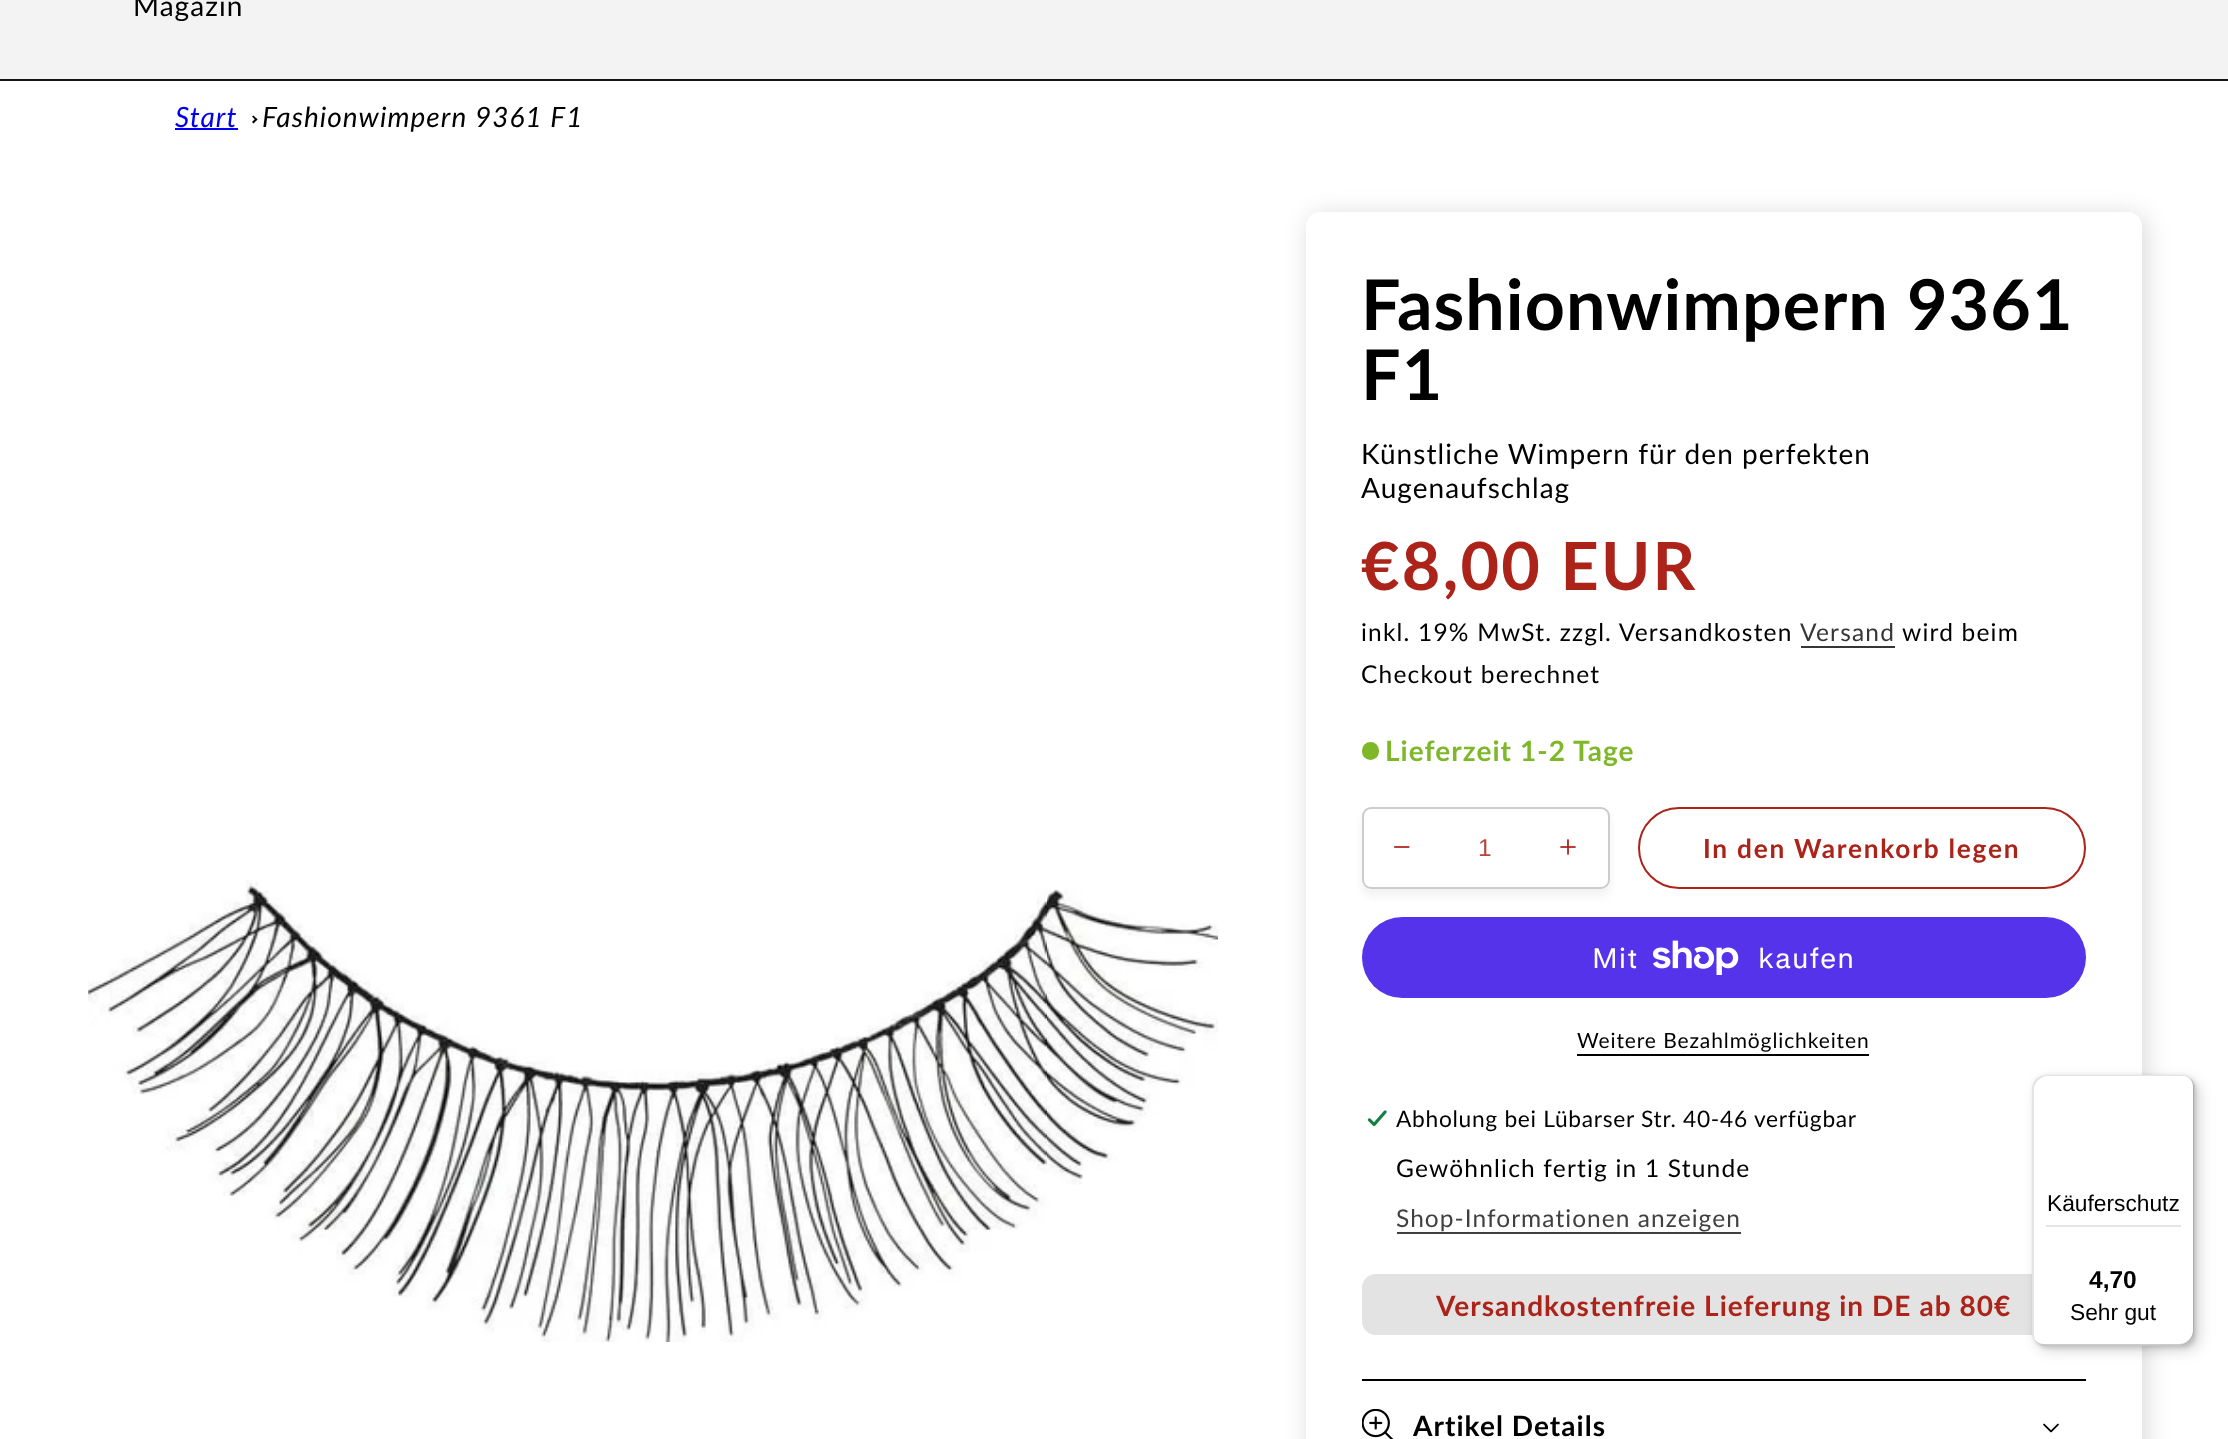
<svg xmlns="http://www.w3.org/2000/svg" width="2228" height="1439">
	<defs>
		<clipPath id="clip1"><path d="M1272 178H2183V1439H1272ZM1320 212H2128C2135.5 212 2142 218.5 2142 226V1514C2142 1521.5 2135.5 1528 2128 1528H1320C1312.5 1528 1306 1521.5 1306 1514V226C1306 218.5 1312.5 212 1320 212Z" clip-rule="evenodd" /></clipPath>
	</defs>
	<rect width="100%" height="100%" fill="#FFFFFF" />
	<rect x="0" y="79" width="2228" height="2" fill="#141414" />
	<rect x="0" y="0" width="2228" height="79" fill="#F3F3F3" />
	<text x="133" y="16" font-family="Lato" font-size="28" letter-spacing="1.05" fill="#000000">Magazin</text>
	<text x="175" y="127" font-family="Lato" font-size="28" font-style="italic" letter-spacing="1.05" fill="#0000EE">Start</text>
	<rect x="175" y="128" width="63" height="2" fill="#0000EE" />
	<path d="M253.5 115.5L257.5 119.5L256 120.5L252 116.5Z" fill="#000000" />
	<path d="M256 118L257.5 119.5L253.5 123.5L252 122Z" fill="#000000" />
	<text x="262" y="127" font-family="Lato" font-size="28" font-style="italic" letter-spacing="1.05" fill="#000000">Fashionwimpern 9361 F1</text>
	<image x="88" y="880" width="1130" height="462" href="assets/img1.png" />
	<rect x="1362" y="814" width="248" height="82" rx="9" fill="#000000" fill-opacity="0.05" filter="blur(4.5px)" />
	<rect x="1362" y="807" width="248" height="82" rx="9" fill="#FFFFFF" />
	<g clip-path="url(#clip1)">
		<rect x="1309" y="215" width="837" height="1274" rx="14" fill="#000000" fill-opacity="0.15" filter="blur(12px)" />
	</g>
	<g font-family="Lato" font-size="70" font-weight="700" letter-spacing="1.05" fill="#000000">
		<text x="1361" y="330">Fashionwimpern 9361</text>
		<text x="1361" y="400">F1</text>
	</g>
	<g font-family="Lato" font-size="28" letter-spacing="1.05" fill="#000000">
		<text x="1361" y="464">Künstliche Wimpern für den perfekten</text>
		<text x="1361" y="498">Augenaufschlag</text>
	</g>
	<text x="1361" y="590" font-family="Lato" font-size="66.5" font-weight="700" letter-spacing="2.25" fill="#AB2319">€8,00 EUR</text>
	<text x="1361" y="641" font-family="Lato" font-size="24.5" letter-spacing="1.2" fill="#000000">inkl. 19% MwSt. zzgl. Versandkosten</text>
	<text x="1800" y="641" font-family="Lato" font-size="24.5" letter-spacing="1.2" fill="#363636">Versand</text>
	<rect x="1801" y="646" width="94" height="2" fill="#363636" />
	<g font-family="Lato" font-size="24.5" letter-spacing="1.2" fill="#000000">
		<text x="1902" y="641">wird beim</text>
		<text x="1361" y="683">Checkout berechnet</text>
	</g>
	<rect x="1362" y="742" width="17" height="18" rx="8.5" fill="#7EB829" />
	<text x="1385" y="761" font-family="Lato" font-size="28" font-weight="700" letter-spacing="1.05" fill="#7EB829">Lieferzeit 1-2 Tage</text>
	<image x="1394" y="846" width="16" height="2" href="assets/img2.png" />
	<image x="1560" y="839" width="16" height="16" href="assets/img3.png" />
	<rect x="1363" y="808" width="246" height="80" rx="8" fill="none" stroke="#CCCCCC" stroke-width="2" />
	<text x="1478" y="856" font-family="Liberation Sans" font-size="24.5" fill="#B8443C">1</text>
	<rect x="1639" y="808" width="446" height="80" rx="40" fill="none" stroke="#AB2319" stroke-width="2" />
	<text x="1703" y="858" font-family="Lato" font-size="26.25" font-weight="700" letter-spacing="1.75" fill="#AB2319">In den Warenkorb legen</text>
	<rect x="1362" y="917" width="724" height="81" rx="40.5" fill="#5433EB" />
	<text x="1592" y="968" font-family="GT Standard" font-size="28" letter-spacing="1.05" fill="#FFFFFF">Mit</text>
	<image x="1653" y="940" width="86" height="35" href="assets/img4.png" />
	<text x="1758" y="968" font-family="GT Standard" font-size="28" letter-spacing="1.05" fill="#FFFFFF">kaufen</text>
	<text x="1577" y="1048" font-family="Lato" font-size="21" letter-spacing="0.9" fill="#000000">Weitere Bezahlmöglichkeiten</text>
	<rect x="1577" y="1054" width="292" height="2" fill="#000000" />
	<image x="1367" y="1110" width="20" height="17" href="assets/img5.png" />
	<g font-family="Lato" font-size="22.75" letter-spacing="0.7" fill="#000000">
		<text x="1396" y="1127">Abholung bei Lübarser Str. 40-46</text>
		<text x="1754" y="1127">verfügbar</text>
	</g>
	<text x="1396" y="1177" font-family="Lato" font-size="24.5" letter-spacing="1.2" fill="#000000">Gewöhnlich fertig in 1 Stunde</text>
	<text x="1396" y="1227" font-family="Lato" font-size="24.5" letter-spacing="1.05" fill="#404040">Shop-Informationen anzeigen</text>
	<rect x="1397" y="1232" width="344" height="2" fill="#404040" />
	<rect x="1362" y="1274" width="724" height="61" rx="14" fill="#E3E3E3" />
	<text x="1436" y="1316" font-family="Lato" font-size="28" font-weight="700" letter-spacing="1.05" fill="#AB2319">Versandkostenfreie Lieferung in DE ab 80€</text>
	<rect x="1362" y="1379" width="724" height="2" fill="#000000" />
	<image x="1362" y="1409" width="32" height="30" href="assets/img6.png" />
	<text x="1413" y="1436" font-family="Lato" font-size="28" font-weight="700" letter-spacing="1.05" fill="#000000">Artikel Details</text>
	<image x="2043" y="1423" width="16" height="10" href="assets/img7.png" />
	<rect x="2037" y="1080" width="163" height="271" rx="14" fill="#000000" fill-opacity="0.15" filter="blur(7px)" />
	<rect x="2034" y="1076" width="162" height="272" rx="14" fill="#000000" fill-opacity="0.15" filter="blur(2px)" />
	<rect x="2032" y="1075" width="163" height="271" rx="14" fill="#FFFFFF" />
	<path d="M2048 1076H2182C2186 1076 2190 1078 2192 1081C2190 1077 2186 1075 2181 1075H2046C2038 1075 2032 1081 2032 1089V1332C2032 1337 2034 1341 2038 1343C2035 1341 2034 1337 2034 1334V1090C2034 1083 2040 1076 2048 1076Z" fill="#000000" fill-opacity="0.1" />
	<path d="M2036 1341C2038 1344 2042 1346 2046 1346H2181C2189 1346 2195 1340 2195 1332V1089C2195 1084 2193 1080 2189 1078C2192 1080 2193 1083 2193 1087V1330C2193 1338 2186 1344 2179 1344H2044C2041 1344 2038 1343 2036 1341Z" fill="#000000" fill-opacity="0.2" />
	<path d="M2035 1340C2037 1344 2041 1346 2046 1346H2181C2189 1346 2195 1340 2195 1332V1089C2195 1084 2193 1080 2189 1078C2192 1080 2193 1084 2193 1087V1331C2193 1338 2187 1345 2179 1345H2045C2041 1345 2037 1343 2035 1340Z" fill="#323232" fill-opacity="0.2" />
	<path d="M2037 1342C2039 1345 2042 1346 2046 1346H2181C2189 1346 2195 1340 2195 1332V1089C2195 1084 2193 1080 2189 1078C2192 1080 2194 1084 2194 1088V1331C2194 1339 2187 1345 2180 1345H2045C2042 1345 2039 1344 2037 1342Z" fill="#FFFFFF" fill-opacity="0.3" />
	<text x="2047" y="1211" font-family="Liberation Sans" font-size="22.75" fill="#000000">Käuferschutz</text>
	<rect x="2046" y="1225" width="135" height="2" fill="#E5E5E5" />
	<text x="2089" y="1288" font-family="Liberation Sans" font-size="24.5" font-weight="700" fill="#000000">4,70</text>
	<text x="2070" y="1320" font-family="Liberation Sans" font-size="22.75" fill="#000000">Sehr gut</text>
</svg>
